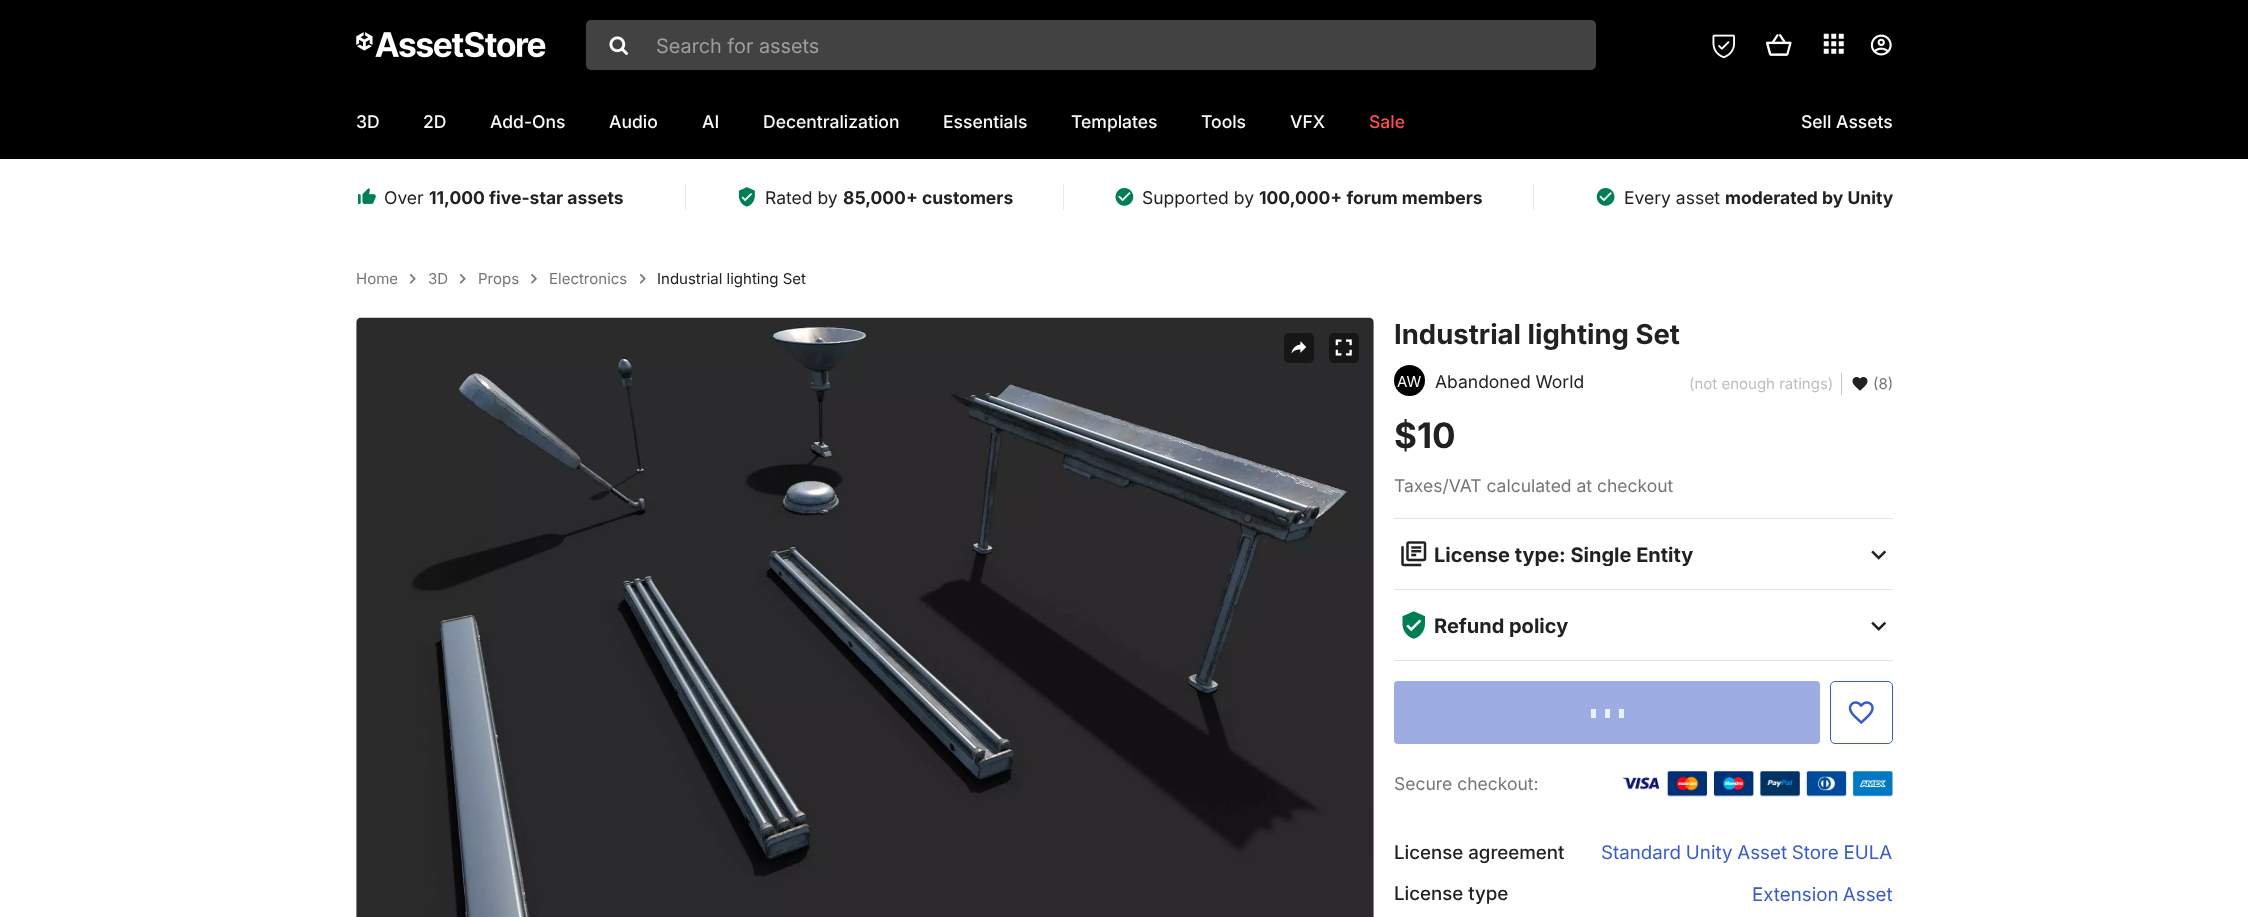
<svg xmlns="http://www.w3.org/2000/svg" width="2248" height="917">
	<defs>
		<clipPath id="clip1"><rect x="1434" y="541" width="429" height="25" /></clipPath>
	</defs>
	<rect width="100%" height="100%" fill="#FFFFFF" />
	<rect x="0" y="0" width="2248" height="159" fill="#000000" />
	<image x="356" y="31" width="190" height="27" href="assets/img1.png" />
	<rect x="586" y="20" width="1010" height="50" rx="5" fill="#424242" />
	<image x="609" y="36" width="19" height="19" href="assets/img2.png" />
	<text x="656" y="53" font-family="'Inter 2'" font-size="20" fill="#9E9E9E">Search for assets</text>
	<image x="1712" y="34" width="23" height="25" href="assets/img3.png" />
	<image x="1766" y="34" width="26" height="22" href="assets/img4.png" />
	<image x="1823" y="33" width="21" height="21" href="assets/img5.png" />
	<image x="1870" y="34" width="22" height="22" href="assets/img6.png" />
	<g font-family="'Inter 2'" font-size="17.5" font-weight="500" fill="#FAFAFA">
		<text x="356" y="128">3D</text>
		<text x="423" y="128">2D</text>
		<text x="490" y="128">Add-Ons</text>
		<text x="609" y="128">Audio</text>
		<text x="702" y="128">AI</text>
		<text x="763" y="128">Decentralization</text>
		<text x="943" y="128">Essentials</text>
		<text x="1071" y="128">Templates</text>
		<text x="1201" y="128">Tools</text>
		<text x="1290" y="128">VFX</text>
	</g>
	<text x="1369" y="128" font-family="'Inter 2'" font-size="17.5" font-weight="500" fill="#FF5050">Sale</text>
	<text x="1801" y="128" font-family="'Inter 2'" font-size="17.5" font-weight="500" fill="#FAFAFA">Sell Assets</text>
	<image x="358" y="188" width="18" height="16" href="assets/img7.png" />
	<text x="384" y="204" font-family="Inter" font-size="17.5" fill="#212121">Over</text>
	<text x="429" y="204" font-family="Inter" font-size="17.5" font-weight="700" fill="#212121">11,000 five-star assets</text>
	<rect x="1063" y="184" width="1" height="26" fill="#E9E9E9" />
	<rect x="685" y="184" width="1" height="26" fill="#E9E9E9" />
	<image x="738" y="187" width="17" height="20" href="assets/img8.png" />
	<text x="765" y="204" font-family="Inter" font-size="17.5" fill="#212121">Rated by</text>
	<text x="843" y="204" font-family="Inter" font-size="17.5" font-weight="700" fill="#212121">85,000+ customers</text>
	<rect x="1533" y="184" width="1" height="26" fill="#E9E9E9" />
	<image x="1115" y="188" width="19" height="18" href="assets/img9.png" />
	<text x="1142" y="204" font-family="Inter" font-size="17.5" fill="#212121">Supported by</text>
	<text x="1259" y="204" font-family="Inter" font-size="17.5" font-weight="700" fill="#212121">100,000+ forum members</text>
	<image x="1596" y="188" width="19" height="18" href="assets/img10.png" />
	<text x="1624" y="204" font-family="Inter" font-size="17.5" fill="#212121">Every asset</text>
	<text x="1725" y="204" font-family="Inter" font-size="17.5" font-weight="700" fill="#212121">moderated by Unity</text>
	<text x="356" y="284" font-family="Inter" font-size="15" fill="#757575">Home</text>
	<image x="409" y="273" width="7" height="11" href="assets/img11.png" />
	<text x="428" y="284" font-family="Inter" font-size="15" fill="#757575">3D</text>
	<image x="459" y="273" width="7" height="11" href="assets/img11.png" />
	<text x="478" y="284" font-family="Inter" font-size="15" fill="#757575">Props</text>
	<image x="531" y="273" width="6" height="11" href="assets/img12.png" />
	<text x="549" y="284" font-family="Inter" font-size="15" fill="#757575">Electronics</text>
	<image x="639" y="273" width="7" height="11" href="assets/img11.png" />
	<text x="657" y="284" font-family="Inter" font-size="15" fill="#212121">Industrial lighting Set</text>
	<path d="M361 318H1369C1372 318 1374 320 1374 323V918H356V323C356 320 358 318 361 318Z" fill="#F5F5F5" />
	<image x="356" y="317" width="1018" height="600" href="assets/img13.png" />
	<rect x="1284" y="333" width="30" height="30" rx="5" fill="#161616" />
	<image x="1291" y="341" width="16" height="13" href="assets/img14.png" />
	<rect x="1329" y="333" width="30" height="30" rx="5" fill="#161616" />
	<image x="1335" y="339" width="17" height="17" href="assets/img15.png" />
	<text x="1394" y="344" font-family="Inter" font-size="27.5" font-weight="700" fill="#212121">Industrial lighting Set</text>
	<circle cx="1409.5" cy="380.5" r="15.5" fill="#000000" />
	<text x="1397" y="387" font-family="Inter" font-size="15" fill="#FAFAFA">AW</text>
	<text x="1435" y="388" font-family="Inter" font-size="17.5" fill="#212121">Abandoned World</text>
	<text x="1689" y="389" font-family="Inter" font-size="15" fill="#BDBDBD">(not enough ratings)</text>
	<rect x="1841" y="373" width="1" height="22" fill="#C2C2C2" />
	<image x="1852" y="377" width="16" height="14" href="assets/img16.png" />
	<text x="1873" y="389" font-family="Inter" font-size="15" fill="#757575">(8)</text>
	<text x="1394" y="448" font-family="Inter" font-size="35" font-weight="700" fill="#212121">$10</text>
	<text x="1394" y="492" font-family="Inter" font-size="17.5" fill="#757575">Taxes/VAT calculated at checkout</text>
	<rect x="1394" y="518" width="499" height="1" fill="#E4E4E4" />
	<image x="1401" y="541" width="26" height="26" href="assets/img17.png" />
	<g clip-path="url(#clip1)">
		<text x="1434" y="562" font-family="Inter" font-size="20" font-weight="700" fill="#212121">License type: Single Entity</text>
	</g>
	<image x="1871" y="550" width="16" height="10" href="assets/img18.png" />
	<rect x="1394" y="589" width="499" height="1" fill="#E4E4E4" />
	<rect x="1394" y="660" width="499" height="1" fill="#E4E4E4" />
	<image x="1402" y="611" width="23" height="28" href="assets/img19.png" />
	<text x="1434" y="633" font-family="Inter" font-size="20" font-weight="700" fill="#212121">Refund policy</text>
	<image x="1871" y="621" width="16" height="10" href="assets/img20.png" />
	<rect x="1394" y="681" width="426" height="63" rx="4" fill="#9DADE3" />
	<rect x="1591" y="709" width="5" height="9" fill="#EBEFF9" />
	<rect x="1605" y="709" width="5" height="9" fill="#EBEFF9" />
	<rect x="1619" y="709" width="5" height="9" fill="#EBEFF9" />
	<rect x="1830.5" y="681.5" width="62" height="62" rx="4.5" fill="none" stroke="#3A5BC7" />
	<image x="1848" y="701" width="26" height="24" href="assets/img21.png" />
	<text x="1394" y="790" font-family="Inter" font-size="17.5" fill="#757575">Secure checkout:</text>
	<image x="1622" y="771" width="271" height="26" href="assets/img22.png" />
	<text x="1394" y="859" font-family="Inter" font-size="18.75" font-weight="500" fill="#212121">License agreement</text>
	<text x="1601" y="859" word-spacing="-0.5" font-family="Inter" font-size="18.75" fill="#3A5BC7">Standard Unity Asset Store EULA</text>
	<text x="1394" y="900" font-family="Inter" font-size="18.75" font-weight="500" fill="#212121">License type</text>
	<text x="1752" y="901" word-spacing="-1" font-family="Inter" font-size="18.75" fill="#3A5BC7">Extension Asset</text>
</svg>
